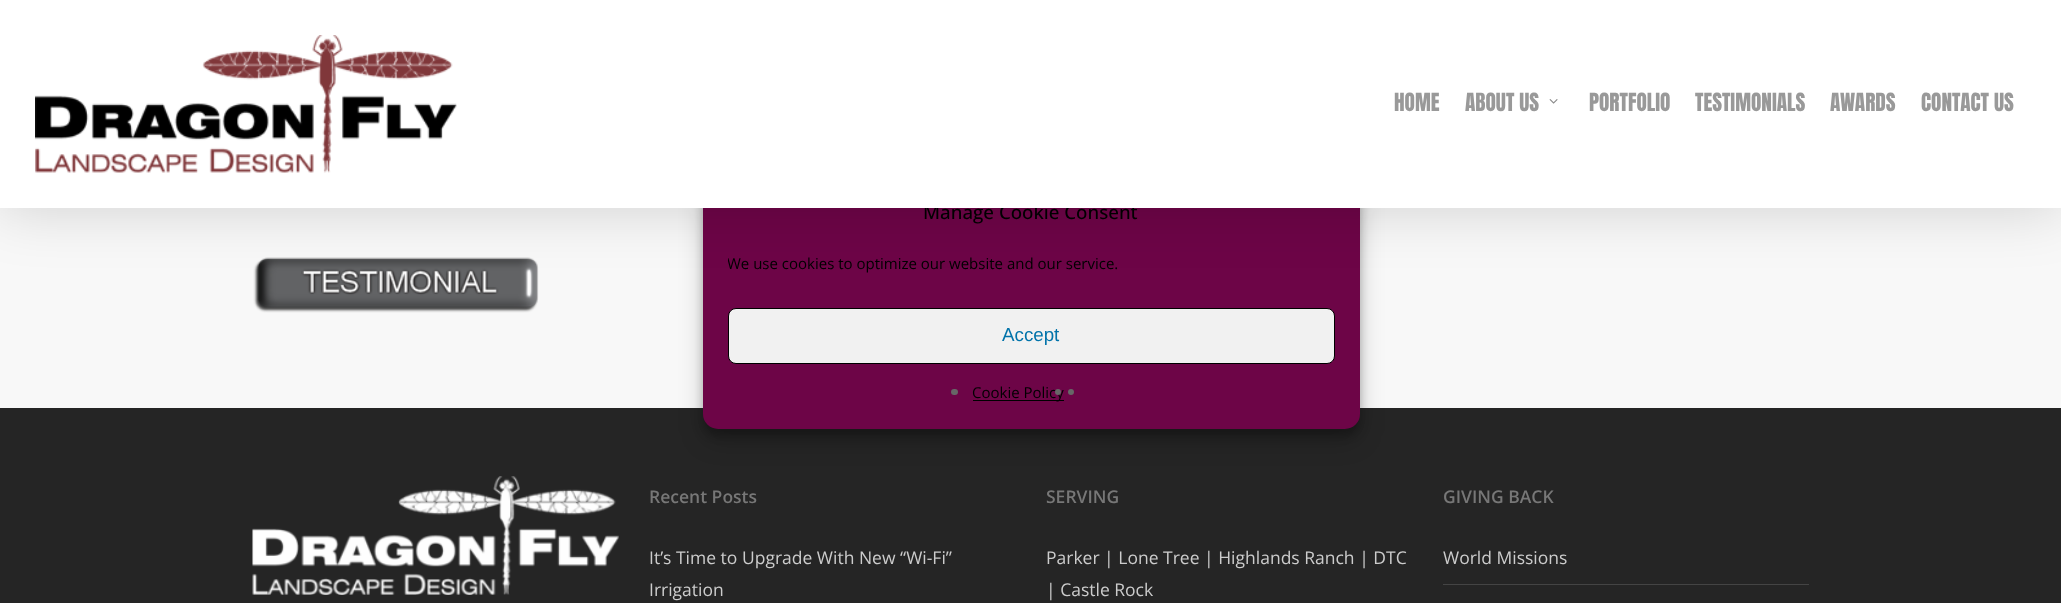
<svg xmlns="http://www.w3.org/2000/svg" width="2061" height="603">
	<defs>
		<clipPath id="clip1"><rect x="728" y="254" width="607" height="29" /></clipPath>
	</defs>
	<rect width="100%" height="100%" fill="#F8F8F8" />
	<rect x="0" y="408" width="2061" height="195" fill="#252525" />
	<rect x="703" y="185" width="657" height="251" rx="15" fill="#000000" fill-opacity="0.23" filter="blur(4px)" />
	<rect x="703" y="190" width="657" height="251" rx="15" fill="#000000" fill-opacity="0.19" filter="blur(12.5px)" />
	<rect x="703" y="178" width="657" height="251" rx="15" fill="#6D0547" />
	<image x="253" y="257" width="286" height="56" href="assets/img3.png" />
	<rect x="0" y="4" width="2061" height="207" fill="#000000" fill-opacity="0.15" filter="blur(28px)" />
	<text x="923" y="219" font-family="Open Sans" font-size="18.75" font-weight="500" fill="#000000">Manage Cookie Consent</text>
	<rect x="0" y="0" width="2061" height="208" fill="#FFFFFF" />
	<image x="35" y="35" width="422" height="138" href="assets/img1.png" />
	<g font-family="Anton" font-size="21.25" fill="#999999">
		<text x="1394" y="111">HOME</text>
		<text x="1465" y="111">ABOUT US</text>
	</g>
	<image x="1549" y="99" width="9" height="5" href="assets/img2.png" />
	<g font-family="Anton" font-size="21.25" fill="#999999">
		<text x="1589" y="111">PORTFOLIO</text>
		<text x="1695" y="111">TESTIMONIALS</text>
		<text x="1830" y="111">AWARDS</text>
		<text x="1921" y="111">CONTACT US</text>
	</g>
	<g clip-path="url(#clip1)">
		<text x="727" y="269" font-family="Open Sans" font-size="15" fill="#000000">We use cookies to optimize our website and our service.</text>
	</g>
	<rect x="728.5" y="308.5" width="606" height="55" rx="7.5" fill="#F1F1F1" stroke="#000000" />
	<text x="1002" y="341" font-family="Liberation Sans" font-size="18.75" fill="#0073AA">Accept</text>
	<rect x="951" y="389" width="7" height="6" rx="3" fill="#676767" />
	<rect x="973" y="400" width="91" height="1" fill="#000000" />
	<text x="972" y="398" font-family="Open Sans" font-size="15" fill="#000000">Cookie Policy</text>
	<circle cx="1058" cy="392" r="3" fill="#676767" />
	<circle cx="1071" cy="392" r="3" fill="#676767" />
	<image x="252" y="476" width="367" height="119" href="assets/img4.png" />
	<text x="649" y="503" font-family="Open Sans" font-size="17.5" font-weight="600" fill="#777777">Recent Posts</text>
	<g font-family="Open Sans" font-size="17.5" fill="#CCCCCC">
		<text x="649" y="564">It’s Time to Upgrade With New “Wi-Fi”</text>
		<text x="649" y="596">Irrigation</text>
	</g>
	<text x="1046" y="503" font-family="Open Sans" font-size="17.5" font-weight="600" fill="#777777">SERVING</text>
	<g font-family="Open Sans" font-size="17.5" fill="#CCCCCC">
		<text x="1046" y="564">Parker | Lone Tree | Highlands Ranch | DTC</text>
		<text x="1046" y="596">| Castle Rock</text>
	</g>
	<text x="1443" y="503" font-family="Open Sans" font-size="17.5" font-weight="600" fill="#777777">GIVING BACK</text>
	<rect x="1443" y="584" width="366" height="1" fill="#444444" />
	<text x="1443" y="564" font-family="Open Sans" font-size="17.5" fill="#CCCCCC">World Missions</text>
</svg>
